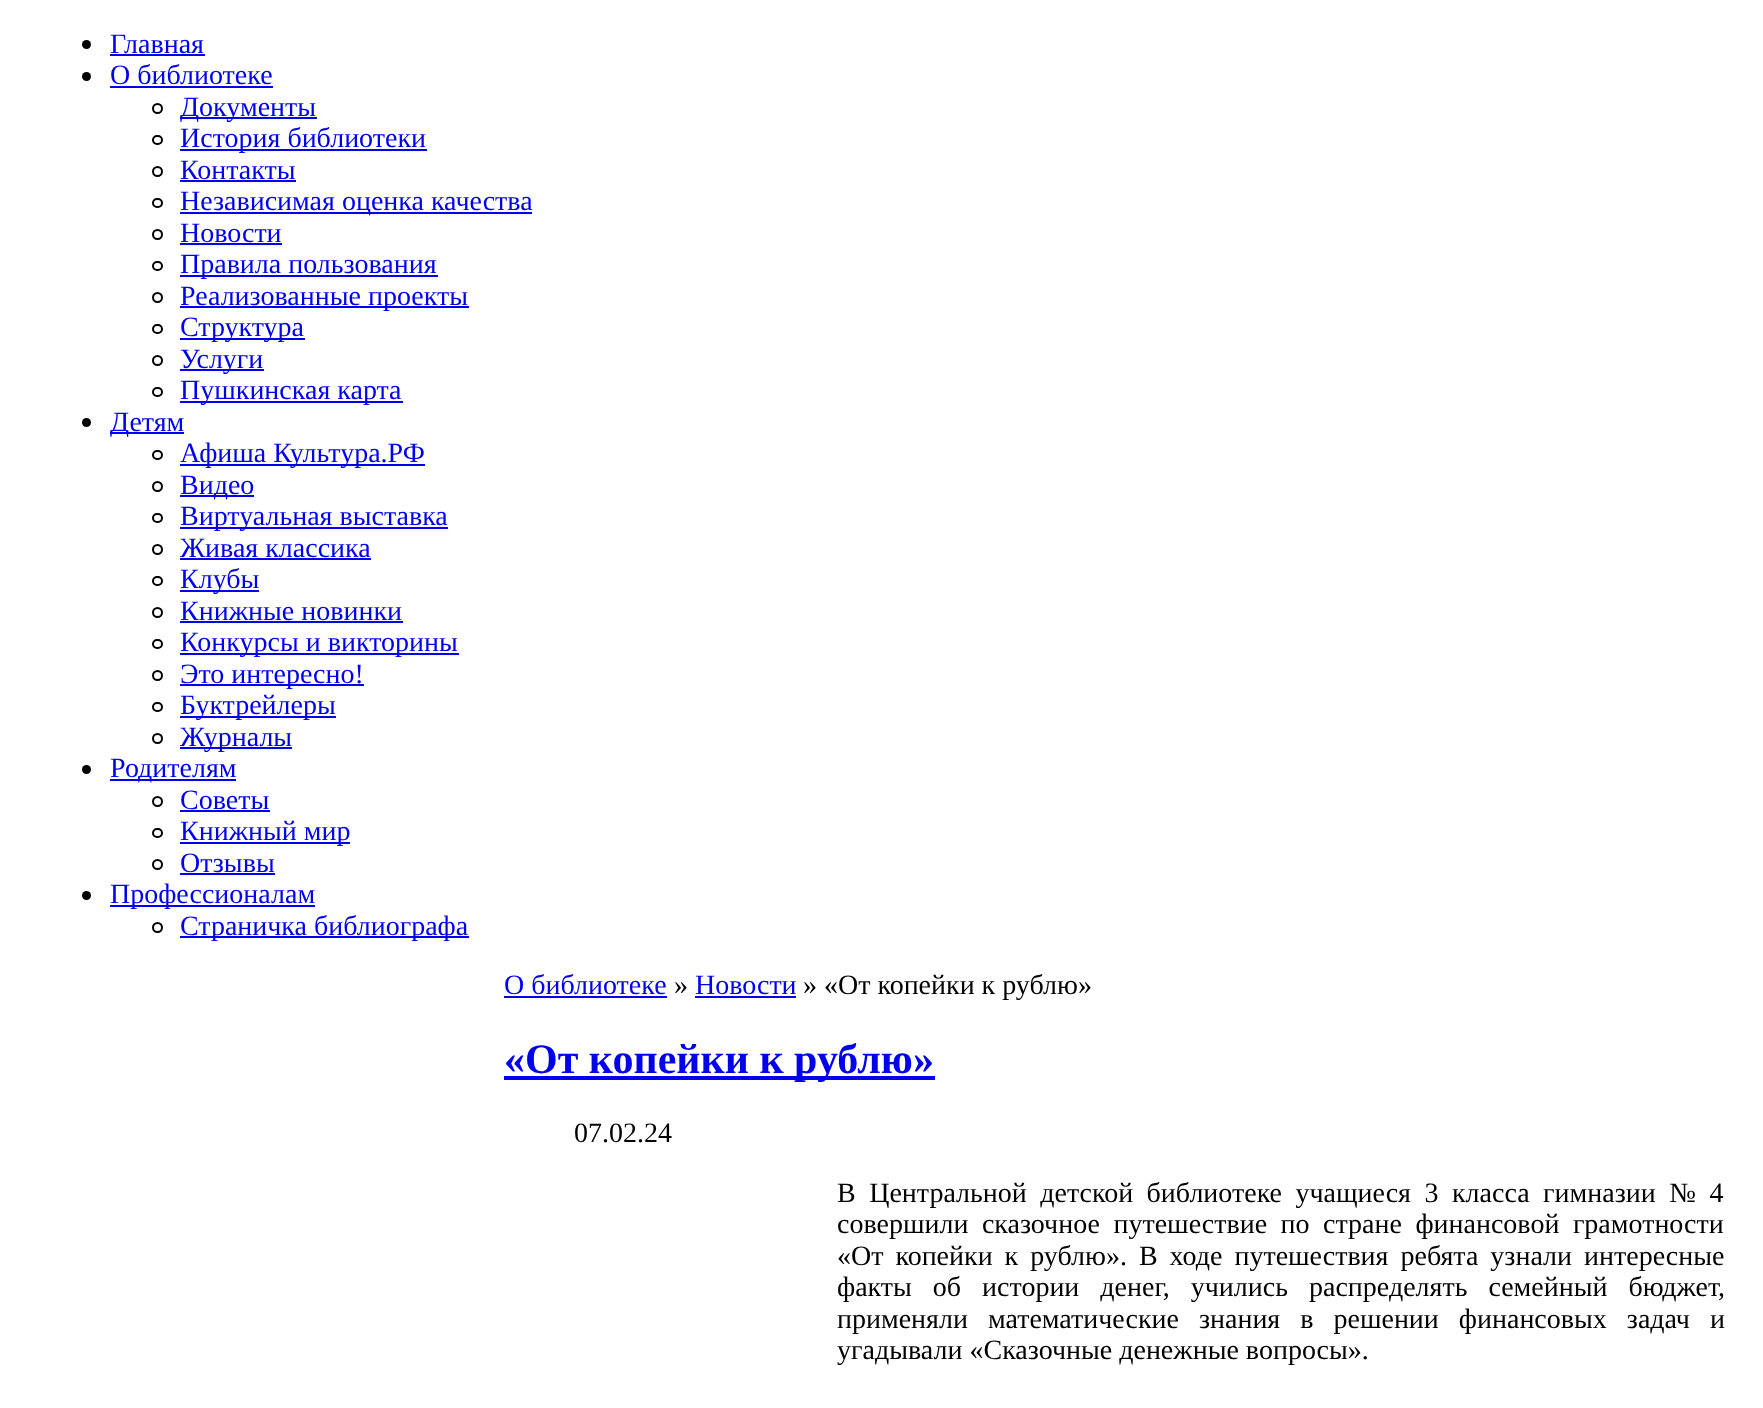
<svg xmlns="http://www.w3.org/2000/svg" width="1763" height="1408">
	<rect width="100%" height="100%" fill="#FFFFFF" />
	<circle cx="86.5" cy="44.5" r="4.5" fill="#000000" />
	<text x="110" y="53" font-family="Liberation Serif" font-size="28" fill="#0000EE">Главная</text>
	<rect x="110" y="54" width="95" height="2" fill="#0000EE" />
	<circle cx="86.5" cy="76.5" r="4.5" fill="#000000" />
	<text x="110" y="84" font-family="Liberation Serif" font-size="28" fill="#0000EE">О библиотеке</text>
	<rect x="110" y="86" width="163" height="2" fill="#0000EE" />
	<circle cx="157.5" cy="108.5" r="4.5" fill="none" stroke="#000000" stroke-width="2" />
	<rect x="180" y="117" width="137" height="2" fill="#0000EE" />
	<text x="180" y="116" font-family="Liberation Serif" font-size="28" fill="#0000EE">Документы</text>
	<rect x="153" y="136" width="9" height="8" rx="4" fill="none" stroke="#000000" stroke-width="2" />
	<rect x="180" y="149" width="247" height="2" fill="#0000EE" />
	<text x="180" y="147" font-family="Liberation Serif" font-size="28" fill="#0000EE">История библиотеки</text>
	<circle cx="157.5" cy="171.5" r="4.5" fill="none" stroke="#000000" stroke-width="2" />
	<text x="180" y="179" font-family="Liberation Serif" font-size="28" fill="#0000EE">Контакты</text>
	<rect x="180" y="180" width="116" height="2" fill="#0000EE" />
	<rect x="153" y="199" width="9" height="8" rx="4" fill="none" stroke="#000000" stroke-width="2" />
	<rect x="180" y="212" width="352" height="2" fill="#0000EE" />
	<text x="180" y="210" font-family="Liberation Serif" font-size="28" fill="#0000EE">Независимая оценка качества</text>
	<circle cx="157.5" cy="234.5" r="4.5" fill="none" stroke="#000000" stroke-width="2" />
	<text x="180" y="242" font-family="Liberation Serif" font-size="28" fill="#0000EE">Новости</text>
	<rect x="180" y="243" width="102" height="2" fill="#0000EE" />
	<rect x="153" y="262" width="9" height="8" rx="4" fill="none" stroke="#000000" stroke-width="2" />
	<rect x="180" y="275" width="258" height="2" fill="#0000EE" />
	<text x="180" y="273" font-family="Liberation Serif" font-size="28" fill="#0000EE">Правила пользования</text>
	<circle cx="157.5" cy="297.5" r="4.5" fill="none" stroke="#000000" stroke-width="2" />
	<rect x="180" y="306" width="289" height="2" fill="#0000EE" />
	<text x="180" y="305" font-family="Liberation Serif" font-size="28" fill="#0000EE">Реализованные проекты</text>
	<rect x="153" y="325" width="9" height="8" rx="4" fill="none" stroke="#000000" stroke-width="2" />
	<rect x="180" y="338" width="125" height="2" fill="#0000EE" />
	<text x="180" y="336" font-family="Liberation Serif" font-size="28" fill="#0000EE">Структура</text>
	<circle cx="157.5" cy="360.5" r="4.5" fill="none" stroke="#000000" stroke-width="2" />
	<rect x="180" y="369" width="84" height="2" fill="#0000EE" />
	<text x="180" y="368" font-family="Liberation Serif" font-size="28" fill="#0000EE">Услуги</text>
	<rect x="153" y="388" width="9" height="8" rx="4" fill="none" stroke="#000000" stroke-width="2" />
	<rect x="180" y="401" width="223" height="2" fill="#0000EE" />
	<text x="180" y="399" font-family="Liberation Serif" font-size="28" fill="#0000EE">Пушкинская карта</text>
	<circle cx="86.5" cy="422.5" r="4.5" fill="#000000" />
	<rect x="110" y="432" width="74" height="2" fill="#0000EE" />
	<text x="110" y="431" font-family="Liberation Serif" font-size="28" fill="#0000EE">Детям</text>
	<rect x="153" y="451" width="9" height="8" rx="4" fill="none" stroke="#000000" stroke-width="2" />
	<rect x="180" y="464" width="245" height="2" fill="#0000EE" />
	<text x="180" y="462" font-family="Liberation Serif" font-size="28" fill="#0000EE">Афиша Культура.РФ</text>
	<circle cx="157.5" cy="486.5" r="4.5" fill="none" stroke="#000000" stroke-width="2" />
	<rect x="180" y="495" width="74" height="2" fill="#0000EE" />
	<text x="180" y="494" font-family="Liberation Serif" font-size="28" fill="#0000EE">Видео</text>
	<rect x="153" y="514" width="9" height="8" rx="4" fill="none" stroke="#000000" stroke-width="2" />
	<rect x="180" y="527" width="268" height="2" fill="#0000EE" />
	<text x="180" y="525" font-family="Liberation Serif" font-size="28" fill="#0000EE">Виртуальная выставка</text>
	<circle cx="157.5" cy="549.5" r="4.5" fill="none" stroke="#000000" stroke-width="2" />
	<text x="180" y="557" font-family="Liberation Serif" font-size="28" fill="#0000EE">Живая классика</text>
	<rect x="180" y="558" width="191" height="2" fill="#0000EE" />
	<rect x="153" y="577" width="9" height="8" rx="4" fill="none" stroke="#000000" stroke-width="2" />
	<rect x="180" y="590" width="79" height="2" fill="#0000EE" />
	<text x="180" y="588" font-family="Liberation Serif" font-size="28" fill="#0000EE">Клубы</text>
	<circle cx="157.5" cy="612.5" r="4.5" fill="none" stroke="#000000" stroke-width="2" />
	<text x="180" y="620" font-family="Liberation Serif" font-size="28" fill="#0000EE">Книжные новинки</text>
	<rect x="180" y="621" width="223" height="2" fill="#0000EE" />
	<rect x="153" y="640" width="9" height="8" rx="4" fill="none" stroke="#000000" stroke-width="2" />
	<rect x="180" y="653" width="279" height="2" fill="#0000EE" />
	<text x="180" y="651" font-family="Liberation Serif" font-size="28" fill="#0000EE">Конкурсы и викторины</text>
	<circle cx="157.5" cy="675.5" r="4.5" fill="none" stroke="#000000" stroke-width="2" />
	<rect x="180" y="684" width="184" height="2" fill="#0000EE" />
	<text x="180" y="683" font-family="Liberation Serif" font-size="28" fill="#0000EE">Это интересно!</text>
	<rect x="153" y="703" width="9" height="8" rx="4" fill="none" stroke="#000000" stroke-width="2" />
	<rect x="180" y="716" width="156" height="2" fill="#0000EE" />
	<text x="180" y="714" font-family="Liberation Serif" font-size="28" fill="#0000EE">Буктрейлеры</text>
	<circle cx="157.5" cy="738.5" r="4.5" fill="none" stroke="#000000" stroke-width="2" />
	<rect x="180" y="747" width="112" height="2" fill="#0000EE" />
	<text x="180" y="746" font-family="Liberation Serif" font-size="28" fill="#0000EE">Журналы</text>
	<circle cx="86.5" cy="769.5" r="4.5" fill="#000000" />
	<rect x="110" y="779" width="126" height="2" fill="#0000EE" />
	<text x="110" y="777" font-family="Liberation Serif" font-size="28" fill="#0000EE">Родителям</text>
	<circle cx="157.5" cy="801.5" r="4.5" fill="none" stroke="#000000" stroke-width="2" />
	<text x="180" y="809" font-family="Liberation Serif" font-size="28" fill="#0000EE">Советы</text>
	<rect x="180" y="810" width="90" height="2" fill="#0000EE" />
	<rect x="153" y="829" width="9" height="8" rx="4" fill="none" stroke="#000000" stroke-width="2" />
	<rect x="180" y="842" width="170" height="2" fill="#0000EE" />
	<text x="180" y="840" font-family="Liberation Serif" font-size="28" fill="#0000EE">Книжный мир</text>
	<circle cx="157.5" cy="864.5" r="4.5" fill="none" stroke="#000000" stroke-width="2" />
	<text x="180" y="872" font-family="Liberation Serif" font-size="28" fill="#0000EE">Отзывы</text>
	<rect x="180" y="873" width="95" height="2" fill="#0000EE" />
	<circle cx="86.5" cy="895.5" r="4.5" fill="#000000" />
	<rect x="110" y="905" width="205" height="2" fill="#0000EE" />
	<text x="110" y="903" font-family="Liberation Serif" font-size="28" fill="#0000EE">Профессионалам</text>
	<circle cx="157.5" cy="927.5" r="4.5" fill="none" stroke="#000000" stroke-width="2" />
	<rect x="180" y="936" width="289" height="2" fill="#0000EE" />
	<g font-family="Liberation Serif" font-size="28" fill="#0000EE">
		<text x="180" y="935">Страничка библиографа</text>
		<text x="504" y="994">О библиотеке</text>
	</g>
	<rect x="504" y="996" width="163" height="2" fill="#0000EE" />
	<text x="674" y="994" font-family="Liberation Serif" font-size="28" fill="#000000">»</text>
	<text x="695" y="994" font-family="Liberation Serif" font-size="28" fill="#0000EE">Новости</text>
	<rect x="695" y="996" width="101" height="2" fill="#0000EE" />
	<text x="803" y="994" font-family="Liberation Serif" font-size="28" fill="#000000">» «От копейки к рублю»</text>
	<rect x="504" y="1076" width="431" height="4" fill="#0000EE" />
	<text x="504" y="1073" font-family="Liberation Serif" font-size="42" font-weight="700" fill="#0000EE">«От копейки к рублю»</text>
	<g font-family="Liberation Serif" font-size="28" fill="#000000">
		<text x="574" y="1142">07.02.24</text>
		<text x="837" y="1202" word-spacing="6.5">В Центральной детской библиотеке учащиеся 3 класса гимназии № 4</text>
		<text x="837" y="1233" word-spacing="6.5">совершили сказочное путешествие по стране финансовой грамотности</text>
		<text x="837" y="1265" word-spacing="5">«От копейки к рублю». В ходе путешествия ребята узнали интересные</text>
		<text x="837" y="1296" word-spacing="14">факты об истории денег, учились распределять семейный бюджет,</text>
		<text x="837" y="1328" word-spacing="13">применяли математические знания в решении финансовых задач и</text>
		<text x="837" y="1359">угадывали «Сказочные денежные вопросы».</text>
	</g>
</svg>
